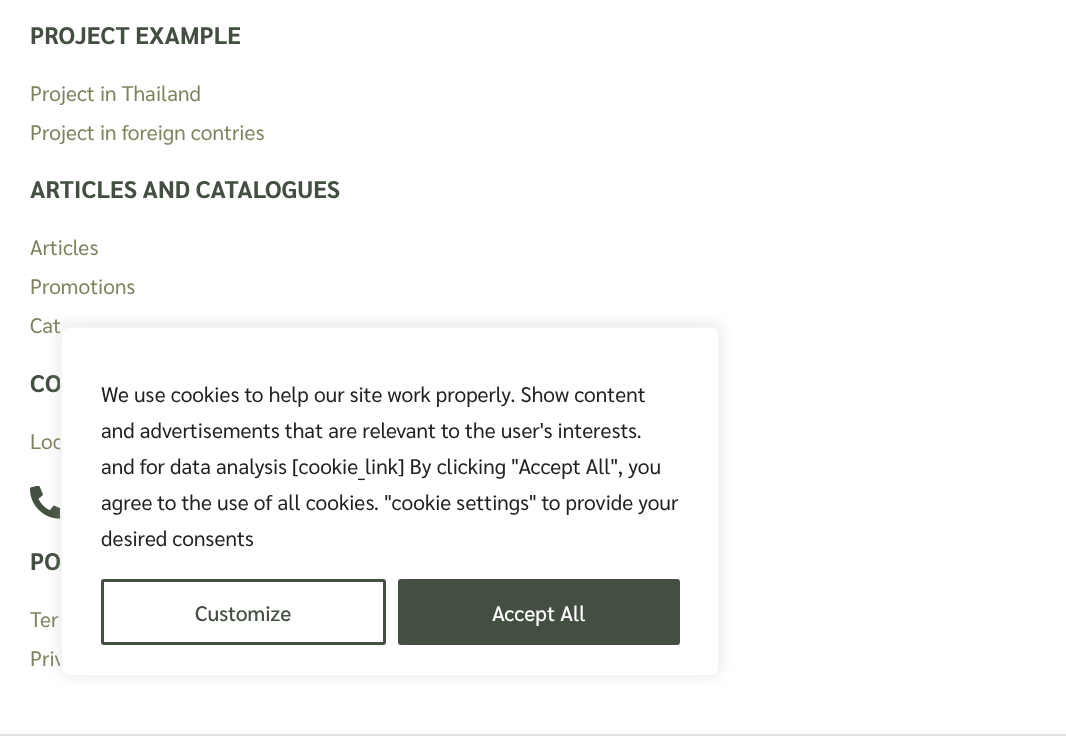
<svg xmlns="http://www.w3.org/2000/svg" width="1066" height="736">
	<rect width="100%" height="100%" fill="#FFFFFF" />
	<text x="30" y="44" font-family="Sarabun" font-size="24" font-weight="700" fill="#434F41">PROJECT EXAMPLE</text>
	<g font-family="Sarabun" font-size="21" fill="#80815D">
		<text x="30" y="101">Project in Thailand</text>
		<text x="30" y="140">Project in foreign contries</text>
	</g>
	<text x="30" y="198" font-family="Sarabun" font-size="24" font-weight="700" fill="#434F41">ARTICLES AND CATALOGUES</text>
	<g font-family="Sarabun" font-size="21" fill="#80815D">
		<text x="30" y="255">Articles</text>
		<text x="30" y="294">Promotions</text>
		<text x="30" y="333">Cat</text>
	</g>
	<text x="30" y="392" font-family="Sarabun" font-size="24" font-weight="700" fill="#434F41">CO</text>
	<text x="30" y="449" font-family="Sarabun" font-size="21" fill="#80815D">Loc</text>
	<image x="30" y="486" width="30" height="33" href="assets/img1.png" />
	<text x="30" y="570" font-family="Sarabun" font-size="24" font-weight="700" fill="#434F41">PO</text>
	<g font-family="Sarabun" font-size="21" fill="#80815D">
		<text x="30" y="627">Ter</text>
		<text x="30" y="666">Priv</text>
	</g>
	<rect x="0" y="734" width="1066" height="2" fill="#E3E3E3" />
	<rect x="60" y="324" width="660" height="351" rx="9" fill="#ACABAB" fill-opacity="0.3" filter="blur(7.5px)" />
	<rect x="61" y="327" width="658" height="349" rx="8" fill="#FFFFFF" stroke="#F4F4F4" stroke-width="2" />
	<g font-family="Sarabun" font-size="21" fill="#212121">
		<text x="101" y="402">We use cookies to help our site work properly. Show content</text>
		<text x="101" y="438">and advertisements that are relevant to the user's interests.</text>
		<text x="101" y="474">and for data analysis [cookie_link] By clicking "Accept All", you</text>
		<text x="101" y="510">agree to the use of all cookies. "cookie settings" to provide your</text>
		<text x="101" y="546">desired consents</text>
	</g>
	<rect x="102.5" y="580.5" width="282" height="63" rx="1.5" fill="none" stroke="#434F41" stroke-width="3" />
	<text x="195" y="621" font-family="Sarabun" font-size="21" font-weight="500" fill="#434F41">Customize</text>
	<rect x="399.5" y="580.5" width="279" height="63" rx="1.5" fill="#434F41" stroke="#434F41" stroke-width="3" />
	<text x="492" y="621" font-family="Sarabun" font-size="21" font-weight="500" fill="#FFFFFF">Accept All</text>
</svg>
